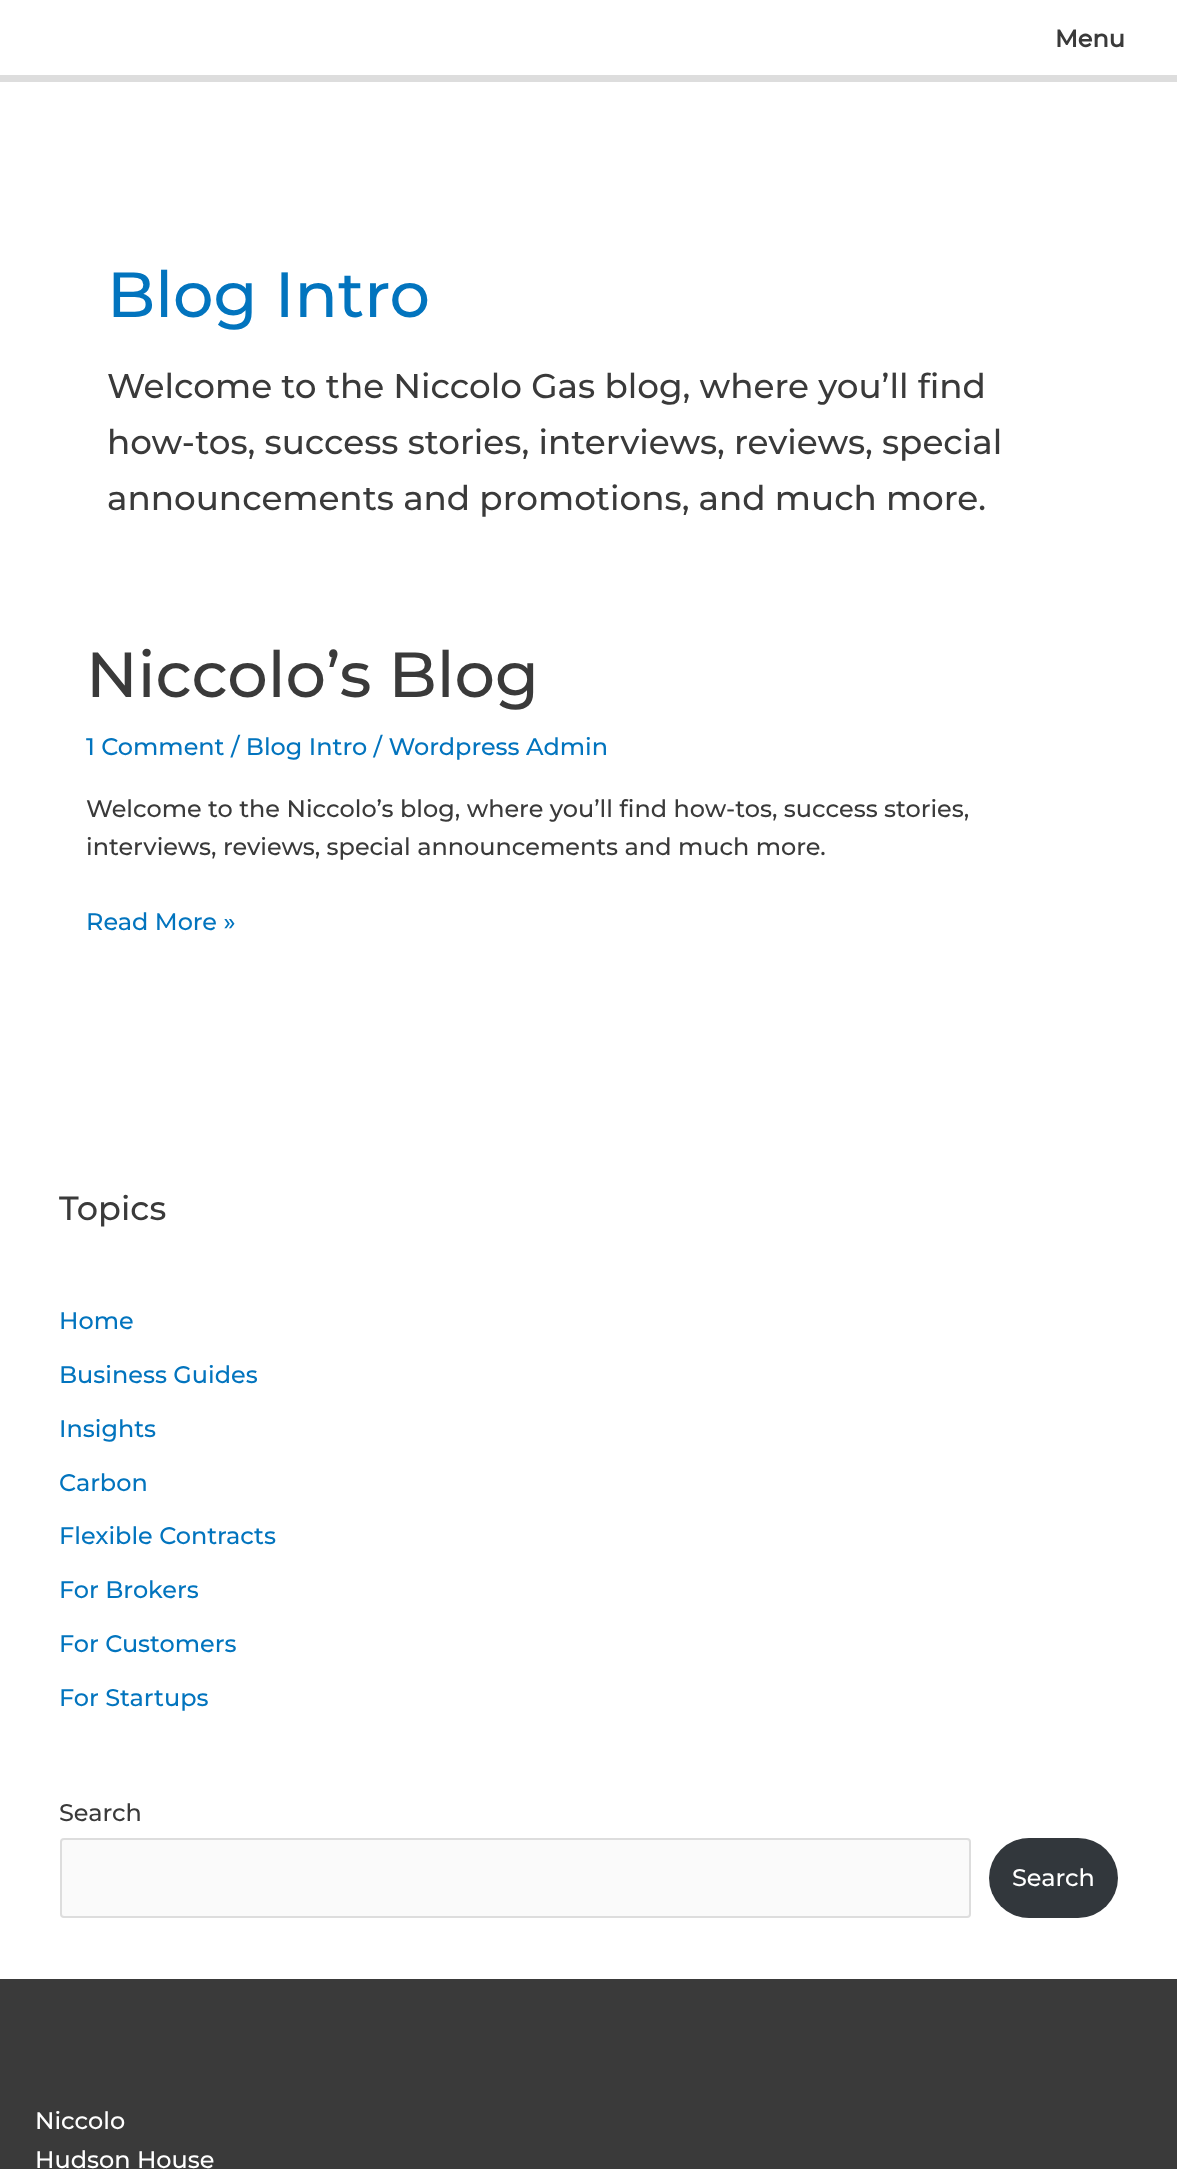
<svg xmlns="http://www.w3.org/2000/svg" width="1177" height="2169">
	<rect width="100%" height="100%" fill="#FFFFFF" />
	<rect x="0" y="75" width="1177" height="7" fill="#DDDDDD" />
	<text x="1055" y="47" font-family="Montserrat" font-size="23.95" font-weight="700" fill="#3A3A3A">Menu</text>
	<text x="107" y="317" font-family="Montserrat" font-size="63.75" font-weight="100" fill="#0274BE">Blog Intro</text>
	<g font-family="Montserrat" font-size="34.2" font-weight="100" fill="#3A3A3A">
		<text x="107" y="398">Welcome to the Niccolo Gas blog, where you’ll find</text>
		<text x="107" y="454">how-tos, success stories, interviews, reviews, special</text>
		<text x="107" y="510">announcements and promotions, and much more.</text>
	</g>
	<text x="86" y="697" font-family="Montserrat" font-size="63.75" font-weight="100" fill="#3A3A3A">Niccolo’s Blog</text>
	<text x="86" y="755" font-family="Montserrat" font-size="23.95" font-weight="100" fill="#0274BE">1 Comment / Blog Intro / Wordpress Admin</text>
	<g font-family="Montserrat" font-size="23.95" font-weight="100" fill="#3A3A3A">
		<text x="86" y="817">Welcome to the Niccolo’s blog, where you’ll find how-tos, success stories,</text>
		<text x="86" y="855">interviews, reviews, special announcements and much more.</text>
	</g>
	<text x="86" y="930" font-family="Montserrat" font-size="23.95" font-weight="100" fill="#0274BE">Read More »</text>
	<text x="59" y="1220" font-family="Montserrat" font-size="33.5" font-weight="100" fill="#3A3A3A">Topics</text>
	<g font-family="Montserrat" font-size="23.95" font-weight="100" fill="#0274BE">
		<text x="59" y="1329">Home</text>
		<text x="59" y="1383">Business Guides</text>
		<text x="59" y="1437">Insights</text>
		<text x="59" y="1491">Carbon</text>
		<text x="59" y="1544">Flexible Contracts</text>
		<text x="59" y="1598">For Brokers</text>
		<text x="59" y="1652">For Customers</text>
		<text x="59" y="1706">For Startups</text>
	</g>
	<text x="59" y="1821" font-family="Montserrat" font-size="23.95" font-weight="100" fill="#3A3A3A">Search</text>
	<rect x="61" y="1839" width="909" height="78" rx="3" fill="#FAFAFA" stroke="#DDDDDD" stroke-width="2" />
	<rect x="989" y="1838" width="129" height="80" rx="40" fill="#32373C" />
	<text x="1012" y="1886" font-family="Montserrat" font-size="23.95" font-weight="100" fill="#FFFFFF">Search</text>
	<rect x="0" y="1979" width="1177" height="190" fill="#3A3A3A" />
	<g font-family="Montserrat" font-size="23.95" font-weight="100" fill="#FFFFFF">
		<text x="35" y="2129">Niccolo</text>
		<text x="35" y="2168">Hudson House</text>
	</g>
</svg>
